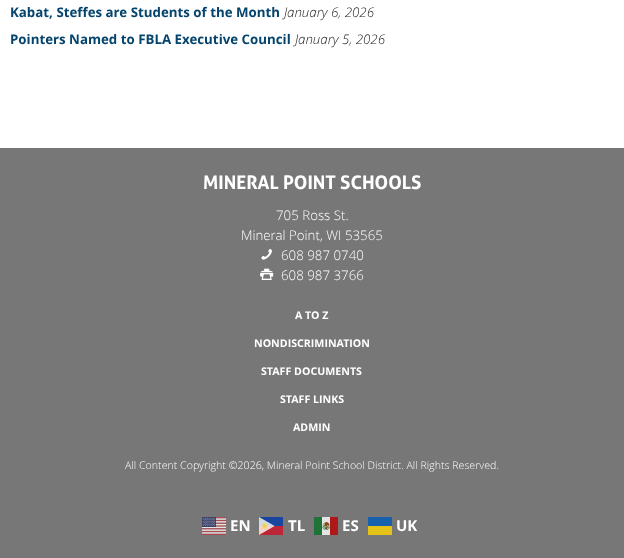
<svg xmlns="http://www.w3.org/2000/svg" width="624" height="558">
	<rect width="100%" height="100%" fill="#777777" />
	<rect x="0" y="0" width="624" height="148" fill="#FFFFFF" />
	<text x="10" y="17" font-family="Open Sans" font-size="13.3" font-weight="700" fill="#05446D">Kabat, Steffes are Students of the Month</text>
	<text x="284" y="17" font-family="Open Sans" font-size="13.3" font-weight="300" font-style="italic" fill="#222222">January 6, 2026</text>
	<text x="10" y="44" font-family="Open Sans" font-size="13.3" font-weight="700" fill="#05446D">Pointers Named to FBLA Executive Council</text>
	<text x="295" y="44" font-family="Open Sans" font-size="13.3" font-weight="300" font-style="italic" fill="#222222">January 5, 2026</text>
	<text x="203" y="189" font-family="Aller" font-size="18.75" font-weight="700" fill="#FFFFFF">MINERAL POINT SCHOOLS</text>
	<g font-family="Open Sans" font-size="13.3" font-weight="300" fill="#FFFFFF">
		<text x="276" y="220">705 Ross St.</text>
		<text x="241" y="240">Mineral Point, WI 53565</text>
	</g>
	<image x="261" y="249" width="11" height="11" href="assets/img1.png" />
	<text x="281" y="260" font-family="Open Sans" font-size="13.3" font-weight="300" fill="#FFFFFF">608 987 0740</text>
	<image x="260" y="268" width="14" height="12" href="assets/img2.png" />
	<text x="281" y="280" font-family="Open Sans" font-size="13.3" font-weight="300" fill="#FFFFFF">608 987 3766</text>
	<g font-family="Open Sans" font-size="10.65" font-weight="700" fill="#FFFFFF">
		<text x="295" y="319">A TO Z</text>
		<text x="254" y="347">NONDISCRIMINATION</text>
		<text x="261" y="375">STAFF DOCUMENTS</text>
		<text x="280" y="403">STAFF LINKS</text>
		<text x="293" y="431">ADMIN</text>
	</g>
	<text x="125" y="469" font-family="Open Sans" font-size="10.65" font-weight="300" fill="#FFFFFF">All Content Copyright ©2026, Mineral Point School District. All Rights Reserved.</text>
	<image x="202" y="517" width="24" height="18" href="assets/img3.png" />
	<text x="230" y="531" font-family="Open Sans" font-size="15" font-weight="700" fill="#FFFFFF">EN</text>
	<image x="259" y="517" width="24" height="18" href="assets/img4.png" />
	<text x="288" y="531" font-family="Open Sans" font-size="15" font-weight="700" fill="#FFFFFF">TL</text>
	<image x="314" y="517" width="24" height="18" href="assets/img5.png" />
	<g font-family="Open Sans" font-size="15" font-weight="700" fill="#FFFFFF">
		<text x="342" y="531">ES</text>
		<text x="396" y="531">UK</text>
	</g>
	<rect x="368" y="526" width="24" height="9" fill="#E4C218" />
	<rect x="368" y="517" width="24" height="9" fill="#1861AD" />
</svg>
